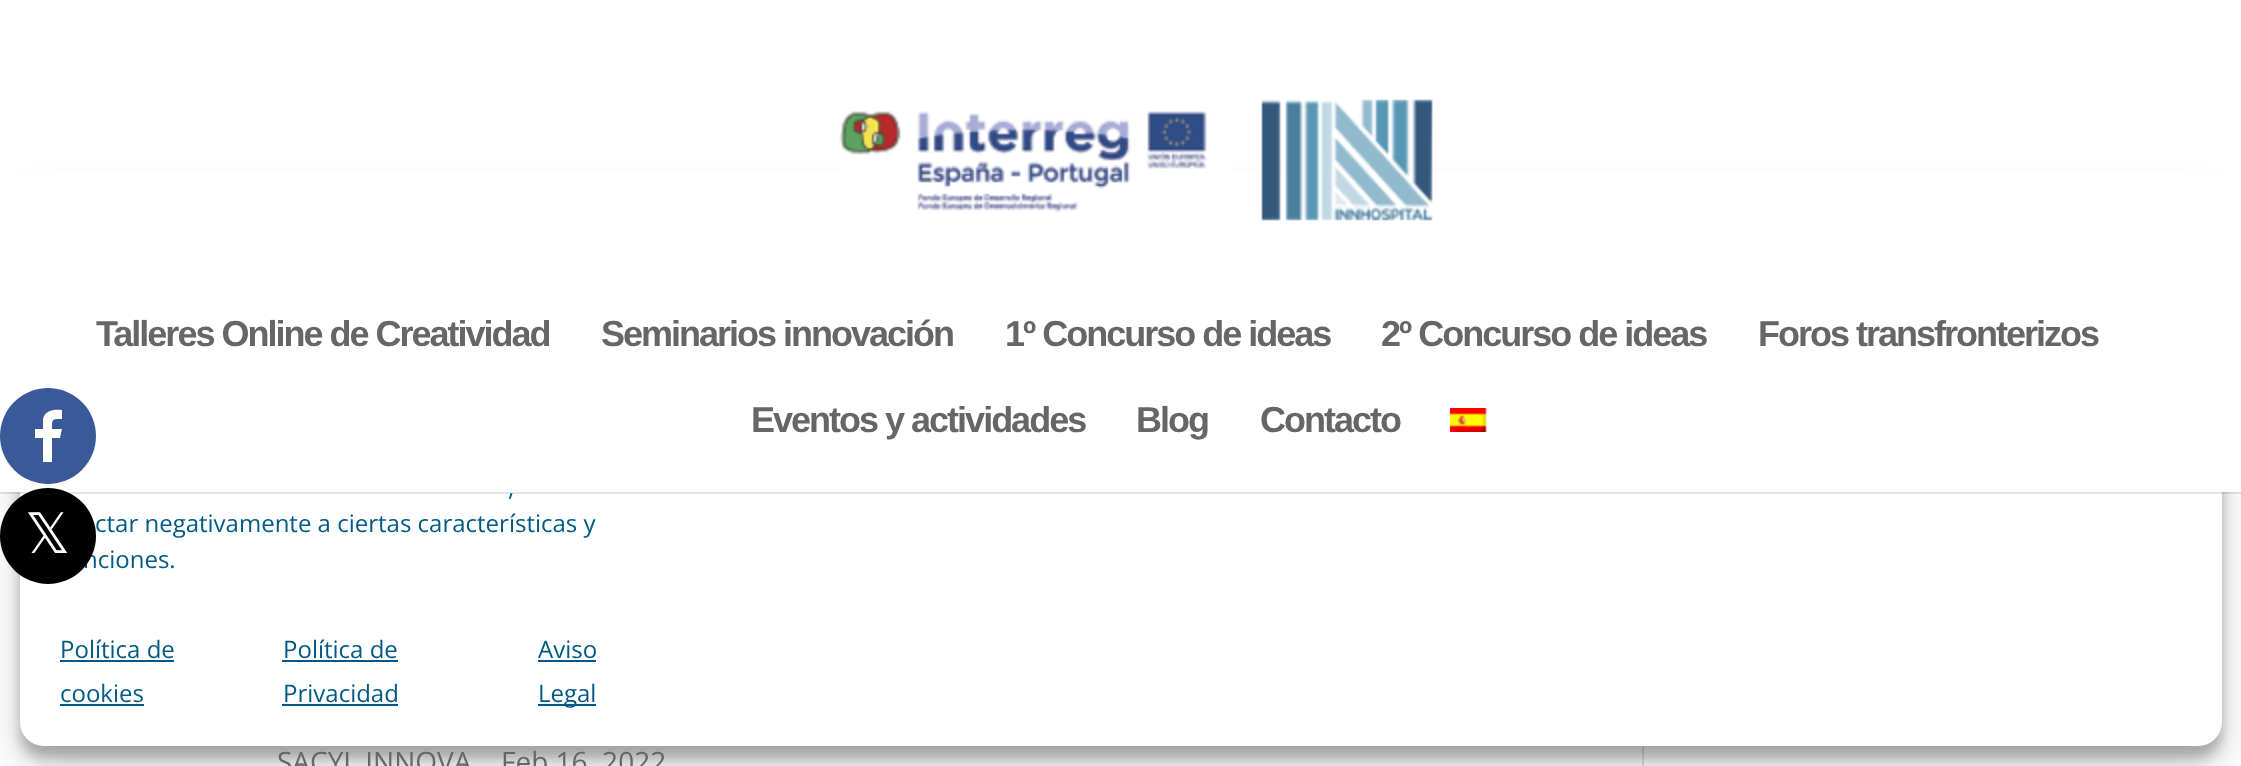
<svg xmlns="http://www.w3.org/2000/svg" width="2241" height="766">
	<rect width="100%" height="100%" fill="#FFFFFF" />
	<rect x="1642" y="746" width="2" height="20" fill="#E2E2E2" />
	<rect x="20" y="196" width="2202" height="562" rx="24" fill="#000000" fill-opacity="0.23" filter="blur(6px)" />
	<rect x="20" y="204" width="2202" height="562" rx="24" fill="#000000" fill-opacity="0.19" filter="blur(20px)" />
	<rect x="20" y="184" width="2202" height="562" rx="24" fill="#FFFFFF" />
	<rect x="0" y="492" width="2241" height="2" fill="#000000" fill-opacity="0.1" />
	<rect x="0" y="172" width="2241" height="320" fill="#FFFFFF" />
	<image x="839" y="99" width="594" height="122" href="assets/img1.png" />
	<g font-family="Liberation Sans" font-size="36" font-weight="700" letter-spacing="-2" fill="#666666">
		<text x="96" y="346">Talleres Online de Creatividad</text>
		<text x="601" y="346">Seminarios innovación</text>
		<text x="1005" y="346">1º Concurso de ideas</text>
		<text x="1381" y="346">2º Concurso de ideas</text>
		<text x="1758" y="346">Foros transfronterizos</text>
		<text x="751" y="432">Eventos y actividades</text>
		<text x="1136" y="432">Blog</text>
		<text x="1260" y="432">Contacto</text>
	</g>
	<image x="1450" y="408" width="37" height="24" href="assets/img2.png" />
	<g font-family="Open Sans" font-size="28" fill="#666666">
		<text x="277" y="772">SACYL INNOVA</text>
		<text x="501" y="772">Feb 16, 2022</text>
	</g>
	<circle cx="48" cy="436" r="48" fill="#3B5998" />
	<path d="M62 410V419C52 419 52 419 52 429H62L60 438H52V462H43V438H35V429H43V419C45 410 54 409 62 410Z" fill="#FFFFFF" />
	<text x="83" y="568" font-family="Open Sans" font-size="24" fill="#005A84">nciones.</text>
	<circle cx="48" cy="536" r="48" fill="#000000" />
	<text x="25" y="553" font-family="DejaVu Sans" font-size="56" fill="#FFFFFF">𝕏</text>
	<g font-family="Open Sans" font-size="24" fill="#005A84">
		<text x="508" y="496">,</text>
		<text x="95" y="532">ctar negativamente a ciertas características y</text>
		<text x="60" y="658">Política de</text>
	</g>
	<rect x="60" y="660" width="114" height="2" fill="#005A84" />
	<text x="60" y="702" font-family="Open Sans" font-size="24" fill="#005A84">cookies</text>
	<rect x="60" y="704" width="84" height="2" fill="#005A84" />
	<text x="283" y="658" font-family="Open Sans" font-size="24" fill="#005A84">Política de</text>
	<rect x="282" y="660" width="116" height="2" fill="#005A84" />
	<text x="283" y="702" font-family="Open Sans" font-size="24" fill="#005A84">Privacidad</text>
	<rect x="282" y="704" width="116" height="2" fill="#005A84" />
	<text x="538" y="658" font-family="Open Sans" font-size="24" fill="#005A84">Aviso</text>
	<rect x="538" y="660" width="58" height="2" fill="#005A84" />
	<rect x="538" y="704" width="58" height="2" fill="#005A84" />
	<text x="538" y="702" font-family="Open Sans" font-size="24" fill="#005A84">Legal</text>
</svg>
